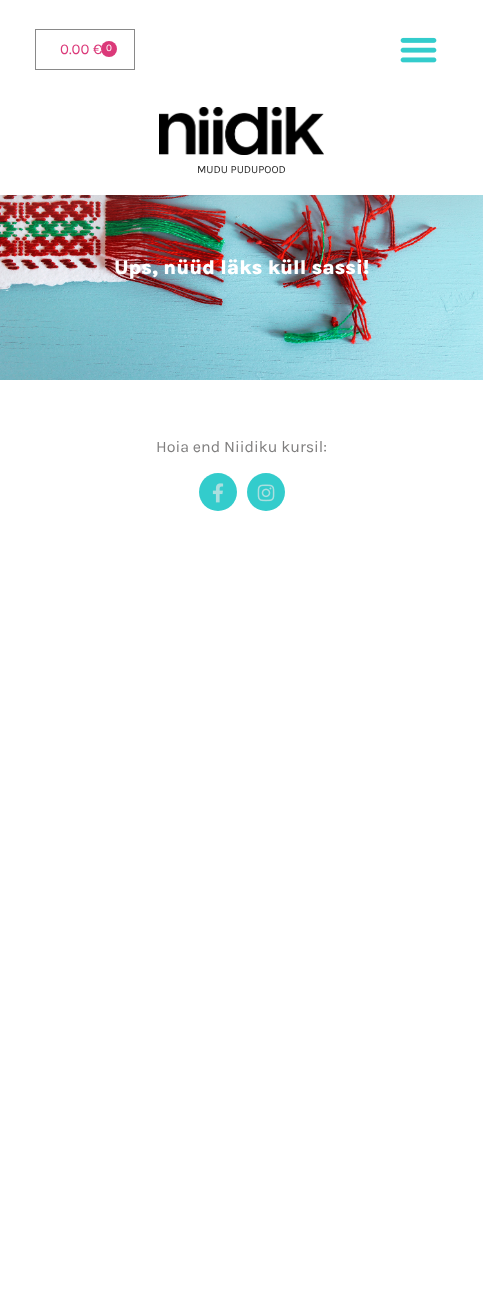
<svg xmlns="http://www.w3.org/2000/svg" width="483" height="1314">
	<rect width="100%" height="100%" fill="#FFFFFF" />
	<image x="0" y="195" width="483" height="185" href="assets/img3.png" />
	<rect x="-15" y="-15" width="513" height="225" fill="#898989" fill-opacity="0.24" filter="blur(25px)" />
	<rect x="0" y="0" width="483" height="195" fill="#FFFFFF" />
	<rect x="35.5" y="29.5" width="99" height="40" fill="none" stroke="#898989" />
	<text x="60" y="54" font-family="Karla" font-size="15" fill="#DB3979">0.00 €</text>
	<circle cx="109" cy="49" r="8" fill="#DB3979" />
	<text x="106" y="51" font-family="Karla" font-size="10" fill="#FFFFFF">0</text>
	<image x="400" y="37" width="37" height="26" href="assets/img1.png" />
	<image x="159" y="107" width="165" height="48" href="assets/img2.png" />
	<text x="197" y="173" font-family="Karla" font-size="11" fill="#2A2A2A">MUDU PUDUPOOD</text>
	<text x="114" y="274" font-family="Karla" font-size="20" font-weight="800" fill="#FFFFFF">Ups, nüüd läks küll sassi!</text>
	<text x="156" y="452" font-family="Karla" font-size="16" fill="#7F7E7E">Hoia end Niidiku kursil:</text>
	<circle cx="218" cy="492" r="19" fill="#33CCCC" />
	<image x="212" y="483" width="12" height="20" href="assets/img4.png" />
	<circle cx="266" cy="492" r="19" fill="#33CCCC" />
	<image x="257" y="484" width="18" height="18" href="assets/img5.png" />
</svg>
